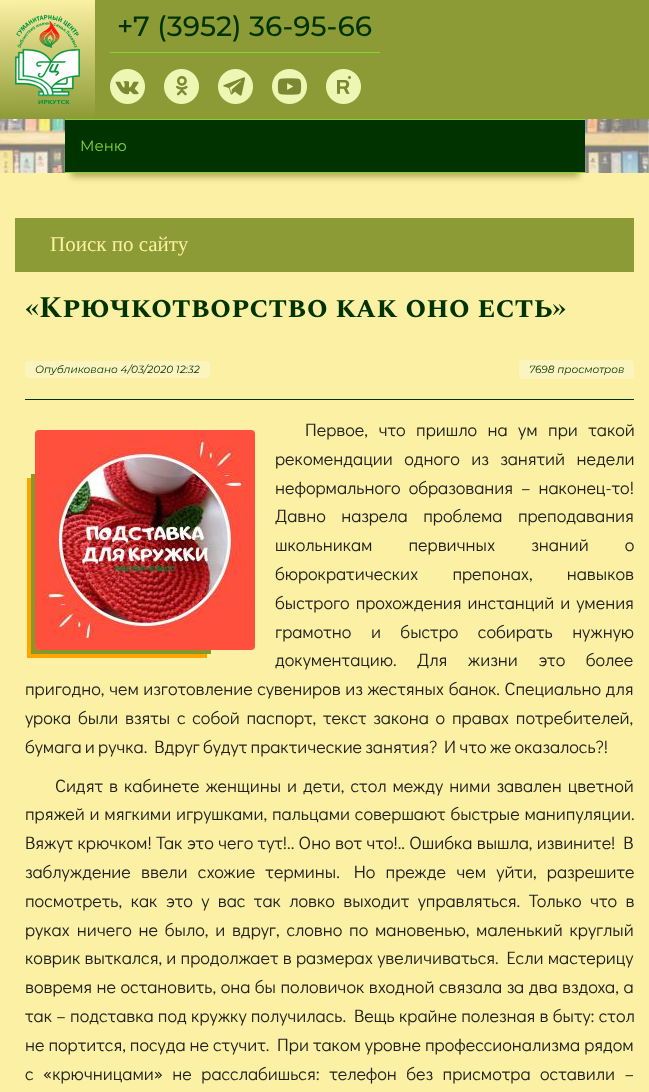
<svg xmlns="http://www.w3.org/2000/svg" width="649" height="1092">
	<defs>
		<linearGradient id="g1" gradientUnits="userSpaceOnUse" x1="47" y1="0" x2="48" y2="119"><stop offset="0" stop-color="#FBF0A3" /><stop offset="1" stop-color="#8C9B36" /></linearGradient>
	</defs>
	<rect width="100%" height="100%" fill="#FFFFFF" />
	<image x="0" y="119" width="649" height="54" href="assets/img1.png" />
	<rect x="95" y="0" width="554" height="119" fill="#8C9B36" />
	<rect x="0" y="0" width="95" height="119" fill="url(#g1)" />
	<image x="15" y="15" width="65" height="89" href="assets/img2.png" />
	<rect x="110" y="52" width="270" height="1" fill="#85D330" />
	<text x="117" y="36" font-family="Montserrat" font-size="28" font-weight="500" fill="#003300">+7 (3952) 36-95-66</text>
	<image x="110" y="69" width="35" height="35" href="assets/img3.png" />
	<image x="164" y="69" width="35" height="35" href="assets/img4.png" />
	<image x="218" y="69" width="35" height="35" href="assets/img5.png" />
	<image x="272" y="69" width="35" height="35" href="assets/img6.png" />
	<image x="326" y="69" width="35" height="35" href="assets/img7.png" />
	<rect x="0" y="173" width="649" height="919" fill="#FBF0A3" />
	<rect x="71" y="135" width="508" height="42" fill="#B5AA5C" filter="blur(3px)" />
	<rect x="65" y="120" width="520" height="52" fill="#003300" />
	<rect x="65" y="119" width="520" height="1" fill="#85D330" />
	<rect x="65" y="172" width="520" height="1" fill="#85D330" />
	<text x="80" y="151" font-family="Montserrat" font-size="15" fill="#85D330">Меню</text>
	<rect x="15" y="218" width="619" height="54" fill="#8C9B36" />
	<text x="50" y="251" font-family="Liberation Serif" font-size="21" fill="#FBF0A3">Поиск по сайту</text>
	<text x="25" y="317" font-family="Spectral SC" font-size="30" font-weight="700" fill="#003300">«Крючкотворство как оно есть»</text>
	<rect x="25" y="399" width="609" height="1" fill="#003300" />
	<rect x="25" y="361" width="185" height="17" rx="4" fill="#FCF4BE" />
	<text x="35" y="373" font-family="Montserrat" font-size="10.5" font-style="italic" fill="#003300">Опубликовано 4/03/2020 12:32</text>
	<rect x="519" y="360" width="115" height="19" rx="4" fill="#FCF4BE" />
	<text x="529" y="373" font-family="Montserrat" font-size="10.5" font-style="italic" fill="#003300">7698 просмотров</text>
	<g font-family="Didact Gothic" font-size="18" fill="#222222">
		<text x="305" y="436" word-spacing="6.5">Первое, что пришло на ум при такой</text>
		<text x="275" y="465" word-spacing="7.5">рекомендации одного из занятий недели</text>
		<text x="275" y="494" word-spacing="4">неформального образования – наконец-то!</text>
		<text x="275" y="522" word-spacing="11.5">Давно назрела проблема преподавания</text>
		<text x="275" y="551" word-spacing="32">школьникам первичных знаний о</text>
		<text x="275" y="580" word-spacing="30">бюрократических препонах, навыков</text>
		<text x="275" y="609" word-spacing="2">быстрого прохождения инстанций и умения</text>
		<text x="275" y="638" word-spacing="15.5">грамотно и быстро собирать нужную</text>
		<text x="275" y="666" word-spacing="16.5">документацию. Для жизни это более</text>
		<text x="25" y="695" word-spacing="0.5">пригодно, чем изготовление сувениров из жестяных банок. Специально для</text>
		<text x="25" y="724" word-spacing="2.75">урока были взяты с собой паспорт, текст закона о правах потребителей,</text>
		<text x="25" y="753" word-spacing="-0.75">бумага и ручка. Вдруг будут практические занятия? И что же оказалось?!</text>
		<text x="55" y="792" word-spacing="2">Сидят в кабинете женщины и дети, стол между ними завален цветной</text>
		<text x="25" y="820" word-spacing="0.75">пряжей и мягкими игрушками, пальцами совершают быстрые манипуляции.</text>
		<text x="25" y="849" word-spacing="0.3">Вяжут крючком! Так это чего тут!.. Оно вот что!.. Ошибка вышла, извините! В</text>
		<text x="25" y="878" word-spacing="6.25">заблуждение ввели схожие термины. Но прежде чем уйти, разрешите</text>
		<text x="25" y="907" word-spacing="4.4">посмотреть, как это у вас так ловко выходит управляться. Только что в</text>
		<text x="25" y="936" word-spacing="2.75">руках ничего не было, и вдруг, словно по мановенью, маленький круглый</text>
		<text x="25" y="964" word-spacing="0.25">коврик выткался, и продолжает в размерах увеличиваться. Если мастерицу</text>
		<text x="25" y="993" word-spacing="0.5">вовремя не остановить, она бы половичок входной связала за два вздоха, а</text>
		<text x="25" y="1022" word-spacing="0.25">так – подставка под кружку получилась. Вещь крайне полезная в быту: стол</text>
		<text x="25" y="1051">не портится, посуда не стучит. При таком уровне профессионализма рядом</text>
		<text x="25" y="1080" word-spacing="5.5">с «крючницами» не расслабишься: телефон без присмотра оставили –</text>
	</g>
	<path d="M27 478V658H207V650H39C37 650 35 648 35 646V478Z" fill="#FFA500" />
	<path d="M31 474V654H211V650H39C37 650 35 648 35 646V474Z" fill="#849927" />
	<image x="35" y="430" width="220" height="220" href="assets/img8.png" />
</svg>
